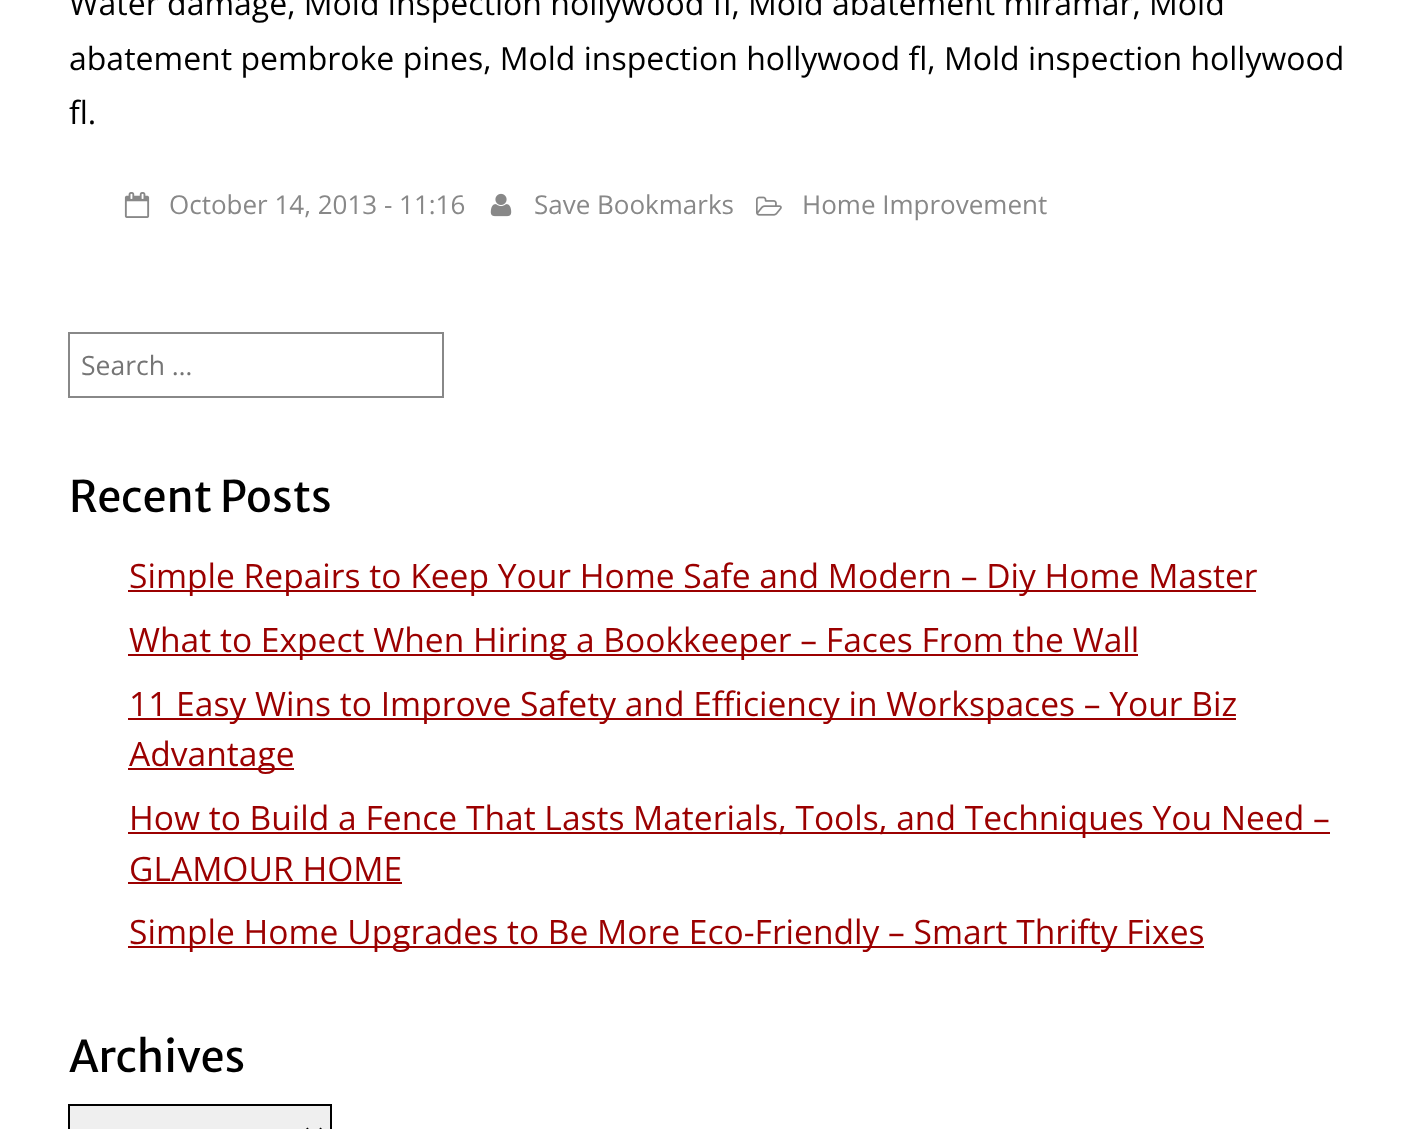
<svg xmlns="http://www.w3.org/2000/svg" width="1408" height="1129">
	<rect width="100%" height="100%" fill="#FFFFFF" />
	<g font-family="Open Sans" font-size="32" fill="#000000">
		<text x="69" y="15">Water damage, Mold inspection hollywood fl, Mold abatement miramar, Mold</text>
		<text x="69" y="70">abatement pembroke pines, Mold inspection hollywood fl, Mold inspection hollywood</text>
		<text x="69" y="124">fl.</text>
	</g>
	<image x="124" y="192" width="26" height="26" href="assets/img1.png" />
	<text x="169" y="214" font-family="Open Sans" font-size="26" fill="#888888">October 14, 2013 - 11:16</text>
	<image x="490" y="193" width="22" height="24" href="assets/img2.png" />
	<text x="534" y="214" font-family="Open Sans" font-size="26" fill="#888888">Save Bookmarks</text>
	<image x="756" y="196" width="26" height="20" href="assets/img3.png" />
	<text x="802" y="214" font-family="Open Sans" font-size="26" fill="#888888">Home Improvement</text>
	<rect x="69" y="333" width="374" height="64" fill="none" stroke="#888888" stroke-width="2" />
	<text x="81" y="375" font-family="Open Sans" font-size="26.5" fill="#757575">Search …</text>
	<text x="69" y="512" font-family="Merriweather Sans" font-size="43.25" fill="#000000">Recent Posts</text>
	<rect x="128" y="590" width="1128" height="2" fill="#9B0000" />
	<text x="129" y="588" font-family="Open Sans" font-size="33.6" fill="#9B0000">Simple Repairs to Keep Your Home Safe and Modern – Diy Home Master</text>
	<rect x="128" y="654" width="1010" height="2" fill="#9B0000" />
	<text x="129" y="652" font-family="Open Sans" font-size="33.6" fill="#9B0000">What to Expect When Hiring a Bookkeeper – Faces From the Wall</text>
	<rect x="128" y="718" width="1108" height="2" fill="#9B0000" />
	<text x="129" y="716" font-family="Open Sans" font-size="33.6" fill="#9B0000">11 Easy Wins to Improve Safety and Efficiency in Workspaces – Your Biz</text>
	<rect x="128" y="768" width="166" height="2" fill="#9B0000" />
	<g font-family="Open Sans" font-size="33.6" fill="#9B0000">
		<text x="129" y="766">Advantage</text>
		<text x="129" y="830">How to Build a Fence That Lasts</text>
	</g>
	<rect x="128" y="832" width="1202" height="2" fill="#9B0000" />
	<g font-family="Open Sans" font-size="33.6" fill="#9B0000">
		<text x="633" y="830">Materials, Tools, and Techniques You Need –</text>
		<text x="129" y="881">GLAMOUR HOME</text>
	</g>
	<rect x="128" y="882" width="274" height="2" fill="#9B0000" />
	<rect x="128" y="946" width="1076" height="2" fill="#9B0000" />
	<text x="129" y="944" font-family="Open Sans" font-size="33.6" fill="#9B0000">Simple Home Upgrades to Be More Eco-Friendly – Smart Thrifty Fixes</text>
	<text x="69" y="1072" font-family="Merriweather Sans" font-size="43.25" fill="#000000">Archives</text>
	<rect x="69" y="1105" width="262" height="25" fill="#EFEFEF" stroke="#000000" stroke-width="2" />
	<path d="M306 1129L314 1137L322 1129" fill="none" stroke="#000000" stroke-width="4" />
</svg>
